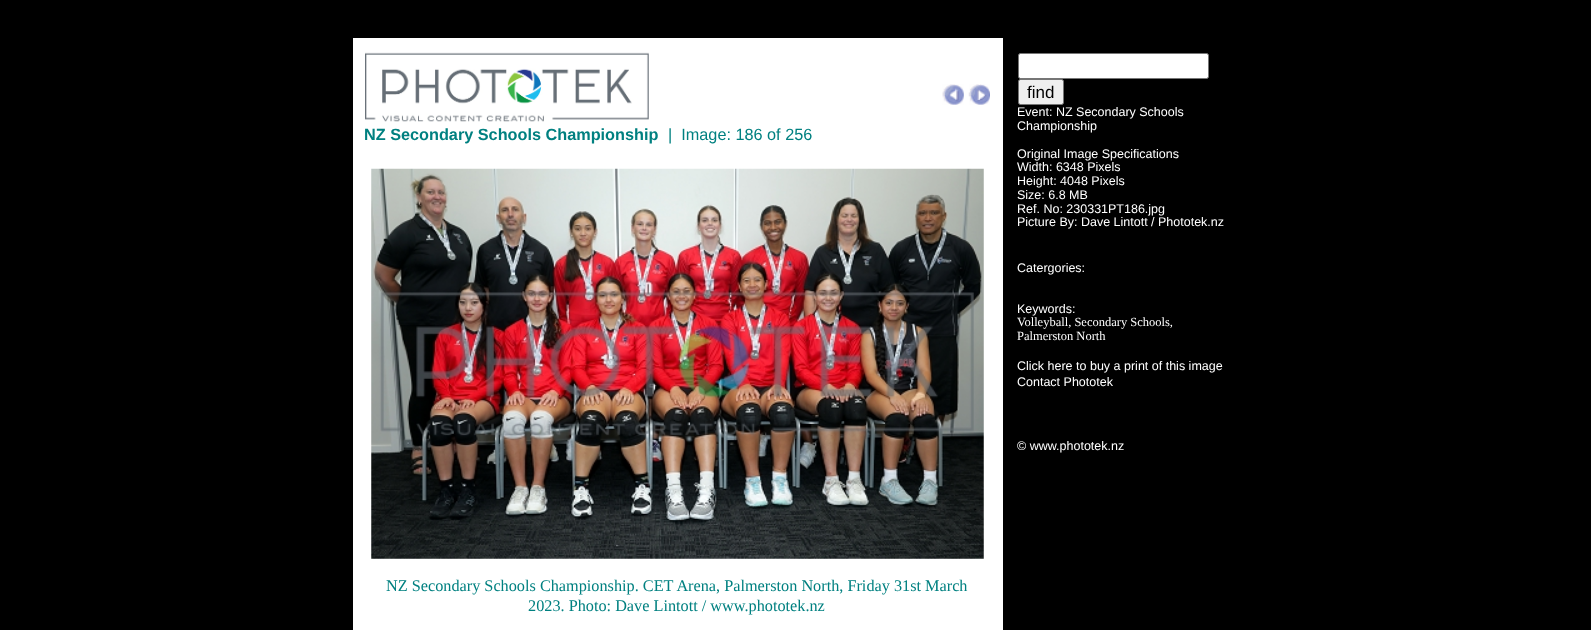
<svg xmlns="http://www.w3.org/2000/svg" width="1591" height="630">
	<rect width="100%" height="100%" fill="#000000" />
	<rect x="353" y="38" width="650" height="592" fill="#FFFFFF" />
	<image x="942" y="84" width="22" height="21" href="assets/img1.png" />
	<image x="968" y="84" width="22" height="21" href="assets/img2.png" />
	<image x="365" y="52" width="284" height="70" href="assets/img3.png" />
	<text x="364" y="140" font-family="Liberation Sans" font-size="16.25" font-weight="700" fill="#008080">NZ Secondary Schools Championship</text>
	<text x="668" y="140" font-family="Liberation Sans" font-size="16.25" fill="#008080" xml:space="preserve">|  Image: 186 of 256</text>
	<image x="371" y="168" width="613" height="391" href="assets/img4.png" />
	<g font-family="Liberation Serif" font-size="16.25" fill="#008080">
		<text x="386" y="591">NZ Secondary Schools Championship. CET Arena, Palmerston North, Friday 31st March</text>
		<text x="528" y="611">2023. Photo: Dave Lintott / www.phototek.nz</text>
	</g>
	<rect x="1018.5" y="53.5" width="190" height="25" rx="2" fill="#FFFFFF" stroke="#767676" />
	<rect x="1018.5" y="79.5" width="45" height="25" rx="2" fill="#EFEFEF" stroke="#767676" />
	<text x="1027" y="98" font-family="Liberation Sans" font-size="17" fill="#000000">find</text>
	<g font-family="Liberation Sans" font-size="12.5" fill="#FFFFFF">
		<text x="1017" y="116">Event: NZ Secondary Schools</text>
		<text x="1017" y="130">Championship</text>
		<text x="1017" y="158">Original Image Specifications</text>
		<text x="1017" y="171">Width: 6348 Pixels</text>
		<text x="1017" y="185">Height: 4048 Pixels</text>
		<text x="1017" y="199">Size: 6.8 MB</text>
		<text x="1017" y="213">Ref. No: 230331PT186.jpg</text>
		<text x="1017" y="226">Picture By: Dave Lintott / Phototek.nz</text>
		<text x="1017" y="272">Catergories:</text>
		<text x="1017" y="313">Keywords:</text>
	</g>
	<g font-family="Liberation Serif" font-size="12.5" fill="#FFFFFF">
		<text x="1017" y="326">Volleyball, Secondary Schools,</text>
		<text x="1017" y="340">Palmerston North</text>
	</g>
	<g font-family="Liberation Sans" font-size="12.5" fill="#FFFFFF">
		<text x="1017" y="370">Click here to buy a print of this image</text>
		<text x="1017" y="386">Contact Phototek</text>
		<text x="1017" y="450">© www.phototek.nz</text>
	</g>
</svg>
